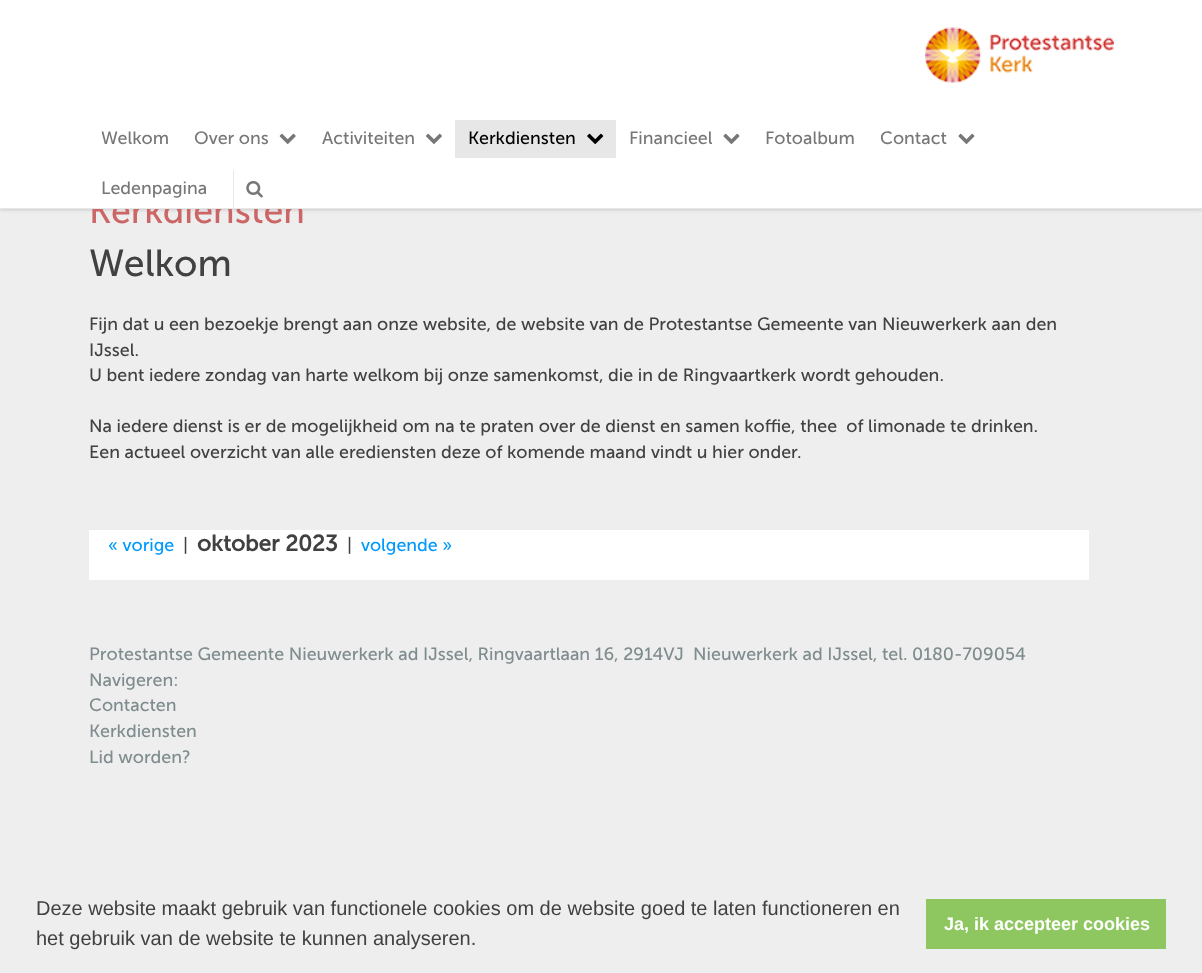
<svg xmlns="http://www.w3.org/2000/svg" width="1202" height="973">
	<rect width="100%" height="100%" fill="#EEEEEE" />
	<rect x="0" y="0" width="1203" height="209" fill="#000000" fill-opacity="0.22" filter="blur(2px)" />
	<text x="89" y="223" font-family="'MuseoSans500'" font-size="35.75" fill="#CC6666">Kerkdiensten</text>
	<rect x="0" y="0" width="1202" height="208" fill="#FFFFFF" />
	<rect x="0" y="208" width="1202" height="1" fill="#E7E7E7" />
	<image x="925" y="27" width="189" height="56" href="assets/img1.png" />
	<g font-family="'MuseoSans500'" font-size="17.88" fill="#777777">
		<text x="101" y="144">Welkom</text>
		<text x="194" y="144">Over ons</text>
	</g>
	<image x="279" y="133" width="17" height="11" href="assets/img2.png" />
	<text x="322" y="144" font-family="'MuseoSans500'" font-size="17.88" fill="#777777">Activiteiten</text>
	<image x="426" y="133" width="16" height="11" href="assets/img3.png" />
	<rect x="455" y="120" width="161" height="38" fill="#E7E7E7" />
	<text x="468" y="144" font-family="'MuseoSans500'" font-size="17.88" fill="#000000">Kerkdiensten</text>
	<image x="587" y="133" width="17" height="11" href="assets/img4.png" />
	<text x="629" y="144" font-family="'MuseoSans500'" font-size="17.88" fill="#777777">Financieel</text>
	<image x="723" y="133" width="17" height="11" href="assets/img5.png" />
	<g font-family="'MuseoSans500'" font-size="17.88" fill="#777777">
		<text x="765" y="144">Fotoalbum</text>
		<text x="880" y="144">Contact</text>
	</g>
	<image x="958" y="133" width="17" height="11" href="assets/img5.png" />
	<text x="101" y="194" font-family="'MuseoSans500'" font-size="17.88" fill="#777777">Ledenpagina</text>
	<rect x="233" y="170" width="1" height="38" fill="#E7E7E7" />
	<image x="246" y="181" width="17" height="17" href="assets/img6.png" />
	<text x="89" y="276" font-family="'MuseoSans500'" font-size="37.5" fill="#414141">Welkom</text>
	<g font-family="'MuseoSans500'" font-size="17.88" fill="#414141">
		<text x="89" y="330">Fijn dat u een bezoekje brengt aan onze website, de website van de Protestantse Gemeente van Nieuwerkerk aan den</text>
		<text x="89" y="356">IJssel.</text>
		<text x="89" y="381">U bent iedere zondag van harte welkom bij onze samenkomst, die in de Ringvaartkerk wordt gehouden.</text>
		<text x="89" y="432" xml:space="preserve">Na iedere dienst is er de mogelijkheid om na te praten over de dienst en samen koffie, thee  of limonade te drinken.</text>
		<text x="89" y="458">Een actueel overzicht van alle erediensten deze of komende maand vindt u hier onder.</text>
	</g>
	<rect x="89" y="530" width="1000" height="50" fill="#FFFFFF" />
	<text x="108" y="551" font-family="'MuseoSans500'" font-size="17.88" fill="#0099FF">« vorige</text>
	<text x="183" y="551" font-family="'MuseoSans500'" font-size="17.88" fill="#414141">|</text>
	<text x="197" y="551" font-family="'MuseoSans500'" font-size="22.5" font-weight="700" fill="#414141">oktober 2023</text>
	<text x="347" y="551" font-family="'MuseoSans500'" font-size="17.88" fill="#414141">|</text>
	<text x="361" y="551" font-family="'MuseoSans500'" font-size="17.88" fill="#0099FF">volgende »</text>
	<g font-family="'MuseoSans500'" font-size="17.88" fill="#7F8C8D">
		<text x="89" y="660" xml:space="preserve">Protestantse Gemeente Nieuwerkerk ad IJssel, Ringvaartlaan 16, 2914VJ  Nieuwerkerk ad IJssel, tel. 0180-709054</text>
		<text x="89" y="686">Navigeren:</text>
		<text x="89" y="711">Contacten</text>
		<text x="89" y="737">Kerkdiensten</text>
		<text x="89" y="763">Lid worden?</text>
	</g>
	<g font-family="Liberation Sans" font-size="20" fill="#414141">
		<text x="36" y="915">Deze website maakt gebruik van functionele cookies om de website goed te laten functioneren en</text>
		<text x="36" y="945">het gebruik van de website te kunnen analyseren.</text>
	</g>
	<rect x="926" y="899" width="240" height="50" fill="#8EC760" />
	<text x="944" y="930" font-family="Liberation Sans" font-size="18" font-weight="700" fill="#FFFFFF">Ja, ik accepteer cookies</text>
</svg>
